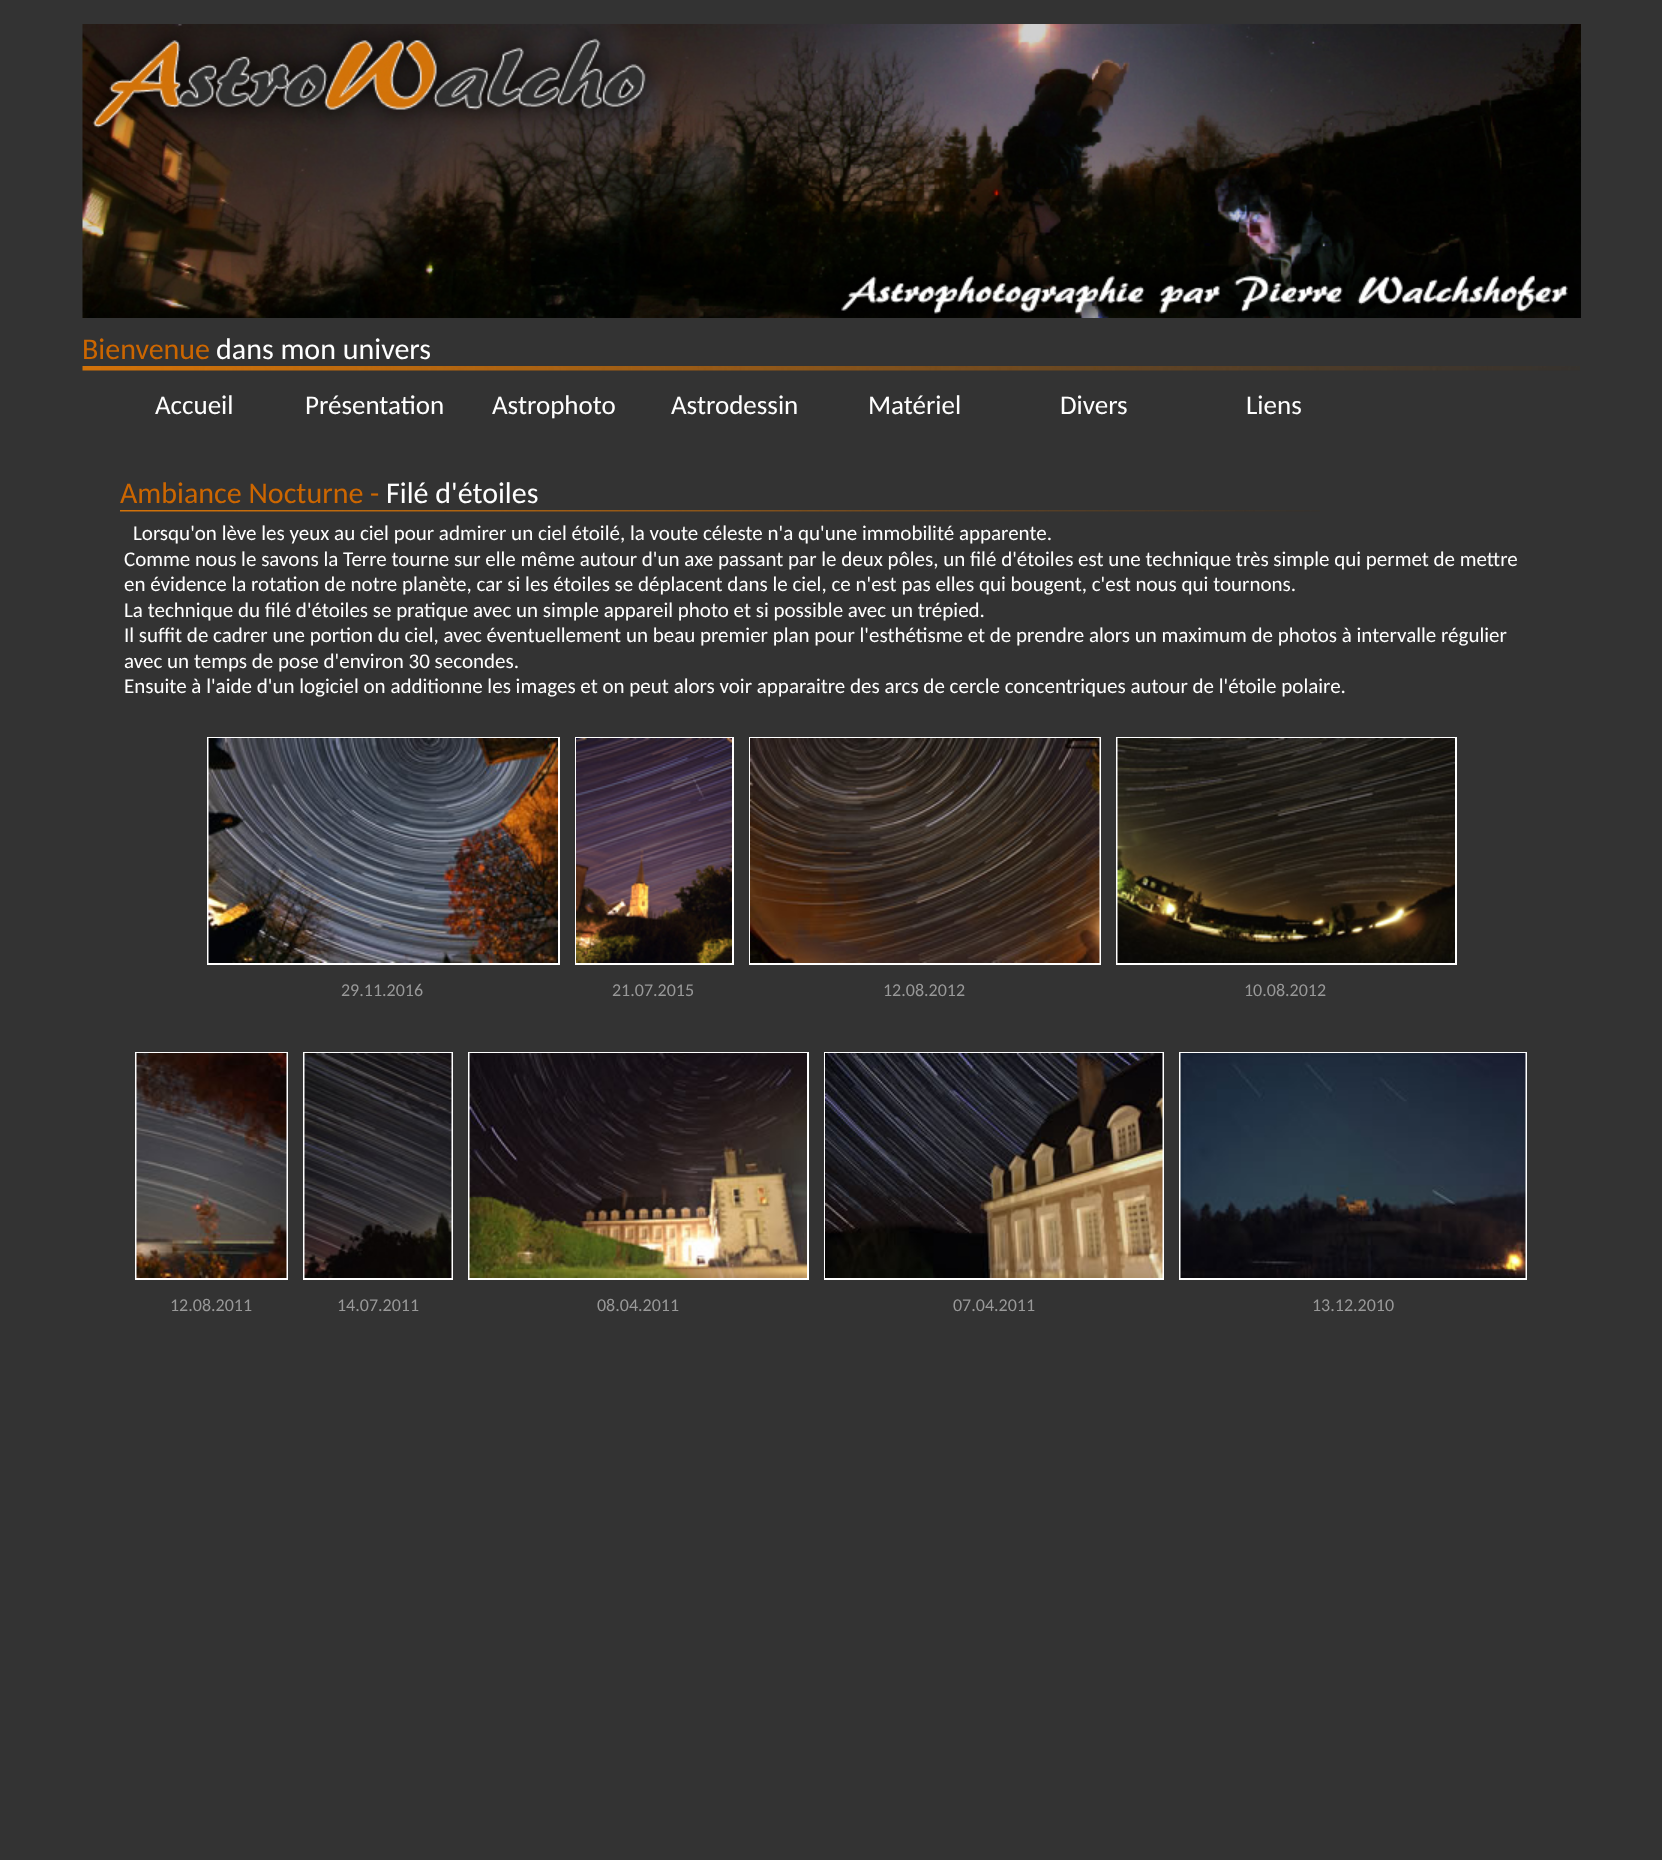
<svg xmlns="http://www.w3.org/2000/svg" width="1662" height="1860">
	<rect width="100%" height="100%" fill="#333333" />
	<image x="82" y="24" width="1499" height="294" href="assets/img1.png" />
	<text x="82" y="359" font-family="Carlito" font-size="30" fill="#CC6600">Bienvenue</text>
	<text x="216" y="359" font-family="Carlito" font-size="30" fill="#FFFFFF">dans mon univers</text>
	<image x="82" y="366" width="1498" height="5" href="assets/img2.png" />
	<g font-family="Carlito" font-size="27" fill="#FFFFFF">
		<text x="155" y="414">Accueil</text>
		<text x="305" y="414">Présentation</text>
		<text x="492" y="414">Astrophoto</text>
		<text x="671" y="414">Astrodessin</text>
		<text x="868" y="414">Matériel</text>
		<text x="1060" y="414">Divers</text>
		<text x="1246" y="414">Liens</text>
	</g>
	<text x="120" y="503" font-family="Carlito" font-size="30" fill="#CC6600">Ambiance Nocturne -</text>
	<text x="386" y="503" font-family="Carlito" font-size="30" fill="#FFFFFF">Filé d'étoiles</text>
	<image x="120" y="510" width="1200" height="2" href="assets/img3.png" />
	<g font-family="Carlito" font-size="21" fill="#FFFFFF">
		<text x="133" y="540">Lorsqu'on lève les yeux au ciel pour admirer un ciel étoilé, la voute céleste n'a qu'une immobilité apparente.</text>
		<text x="124" y="566">Comme nous le savons la Terre tourne sur elle même autour d'un axe passant par le deux pôles, un filé d'étoiles est une technique très simple qui permet de mettre</text>
		<text x="124" y="591">en évidence la rotation de notre planète, car si les étoiles se déplacent dans le ciel, ce n'est pas elles qui bougent, c'est nous qui tournons.</text>
		<text x="124" y="617">La technique du filé d'étoiles se pratique avec un simple appareil photo et si possible avec un trépied.</text>
		<text x="124" y="642">Il suffit de cadrer une portion du ciel, avec éventuellement un beau premier plan pour l'esthétisme et de prendre alors un maximum de photos à intervalle régulier</text>
		<text x="124" y="668">avec un temps de pose d'environ 30 secondes.</text>
		<text x="124" y="693">Ensuite à l'aide d'un logiciel on additionne les images et on peut alors voir apparaitre des arcs de cercle concentriques autour de l'étoile polaire.</text>
	</g>
	<rect x="208" y="738" width="351" height="226" fill="none" stroke="#FFFFFF" stroke-width="2" />
	<image x="208" y="738" width="350" height="225" href="assets/img4.png" />
	<rect x="576" y="738" width="157" height="226" fill="none" stroke="#FFFFFF" stroke-width="2" />
	<image x="576" y="738" width="156" height="225" href="assets/img5.png" />
	<rect x="750" y="738" width="350" height="226" fill="none" stroke="#FFFFFF" stroke-width="2" />
	<image x="750" y="738" width="350" height="225" href="assets/img6.png" />
	<rect x="1117" y="738" width="339" height="226" fill="none" stroke="#FFFFFF" stroke-width="2" />
	<image x="1117" y="738" width="338" height="225" href="assets/img7.png" />
	<g font-family="Carlito" font-size="18" fill="#999999">
		<text x="341" y="996">29.11.2016</text>
		<text x="612" y="996">21.07.2015</text>
		<text x="883" y="996">12.08.2012</text>
		<text x="1244" y="996">10.08.2012</text>
	</g>
	<rect x="136" y="1053" width="151" height="226" fill="none" stroke="#FFFFFF" stroke-width="2" />
	<image x="136" y="1053" width="151" height="225" href="assets/img8.png" />
	<rect x="304" y="1053" width="148" height="226" fill="none" stroke="#FFFFFF" stroke-width="2" />
	<image x="304" y="1053" width="148" height="225" href="assets/img9.png" />
	<rect x="469" y="1053" width="339" height="226" fill="none" stroke="#FFFFFF" stroke-width="2" />
	<image x="469" y="1053" width="338" height="225" href="assets/img10.png" />
	<rect x="825" y="1053" width="338" height="226" fill="none" stroke="#FFFFFF" stroke-width="2" />
	<image x="825" y="1053" width="338" height="225" href="assets/img11.png" />
	<rect x="1180" y="1053" width="346" height="226" fill="none" stroke="#FFFFFF" stroke-width="2" />
	<image x="1180" y="1053" width="346" height="225" href="assets/img12.png" />
	<g font-family="Carlito" font-size="18" fill="#999999">
		<text x="170" y="1311">12.08.2011</text>
		<text x="337" y="1311">14.07.2011</text>
		<text x="597" y="1311">08.04.2011</text>
		<text x="953" y="1311">07.04.2011</text>
		<text x="1312" y="1311">13.12.2010</text>
	</g>
</svg>
